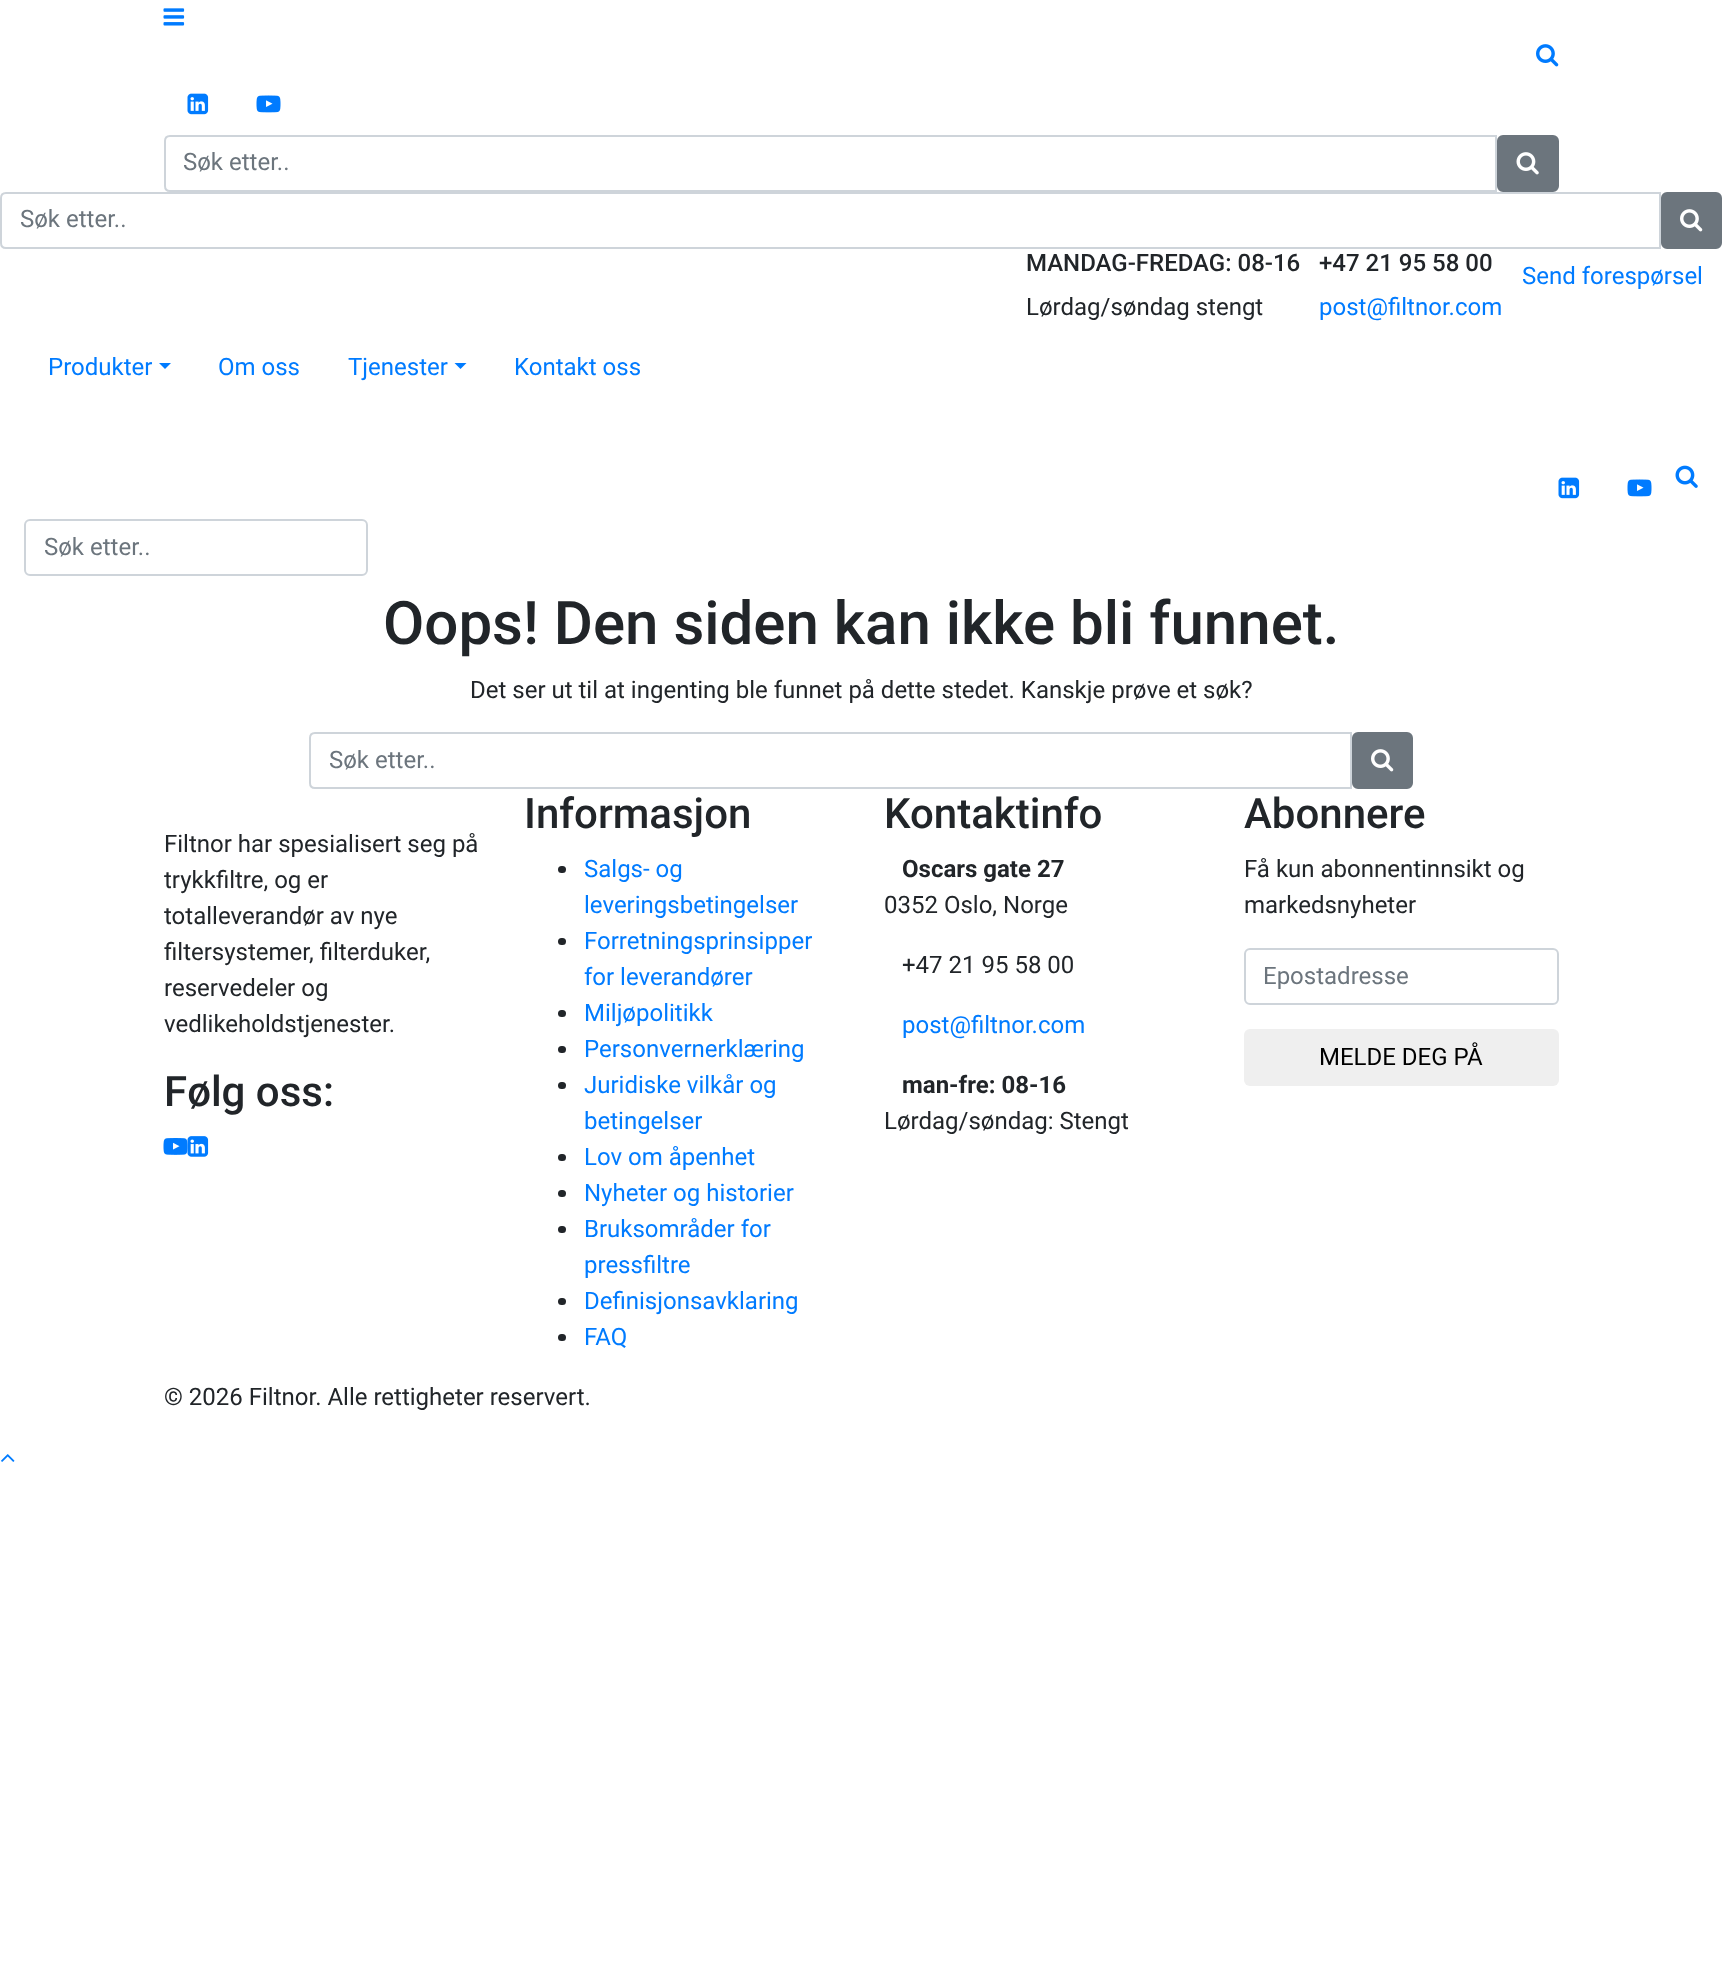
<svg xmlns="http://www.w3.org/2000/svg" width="1722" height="1980">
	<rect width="100%" height="100%" fill="#FFFFFF" />
	<image x="163" y="8" width="22" height="18" href="assets/img1.png" />
	<image x="1536" y="44" width="23" height="23" href="assets/img2.png" />
	<image x="187" y="93" width="22" height="22" href="assets/img3.png" />
	<image x="256" y="95" width="25" height="18" href="assets/img4.png" />
	<path d="M170 136H1496V191H170C167 191 165 189 165 186V141C165 138 167 136 170 136Z" fill="none" stroke="#CED4DA" stroke-width="2" />
	<text x="183" y="170" font-family="Roboto" font-size="24" fill="#6C757D">Søk etter..</text>
	<rect x="1498" y="136" width="60" height="55" rx="5" fill="#6C757D" stroke="#6C757D" stroke-width="2" />
	<image x="1516" y="152" width="23" height="23" href="assets/img5.png" />
	<path d="M6 193H1660V248H6C3 248 1 246 1 243V198C1 195 3 193 6 193Z" fill="none" stroke="#CED4DA" stroke-width="2" />
	<text x="20" y="227" font-family="Roboto" font-size="24" fill="#6C757D">Søk etter..</text>
	<rect x="1662" y="193" width="59" height="55" rx="5" fill="#6C757D" stroke="#6C757D" stroke-width="2" />
	<image x="1680" y="209" width="23" height="23" href="assets/img6.png" />
	<text x="1026" y="271" font-family="Roboto" font-size="24" font-weight="500" fill="#212529">MANDAG-FREDAG: 08-16</text>
	<text x="1026" y="315" font-family="Roboto" font-size="24" fill="#212529">Lørdag/søndag stengt</text>
	<text x="1319" y="271" font-family="Roboto" font-size="24" font-weight="500" fill="#212529">+47 21 95 58 00</text>
	<g font-family="Roboto" font-size="24" fill="#007BFF">
		<text x="1319" y="315">post@filtnor.com</text>
		<text x="1522" y="284">Send forespørsel</text>
		<text x="48" y="375">Produkter</text>
	</g>
	<path d="M159 363H171L165 369Z" fill="#007BFF" />
	<g font-family="Roboto" font-size="24" fill="#007BFF">
		<text x="218" y="375">Om oss</text>
		<text x="348" y="375">Tjenester</text>
	</g>
	<path d="M454.5 363H466.5L460.5 369Z" fill="#007BFF" />
	<text x="514" y="375" font-family="Roboto" font-size="24" fill="#007BFF">Kontakt oss</text>
	<image x="1558" y="477" width="22" height="22" href="assets/img3.png" />
	<image x="1627" y="479" width="25" height="18" href="assets/img4.png" />
	<image x="1675" y="465" width="23" height="23" href="assets/img7.png" />
	<rect x="25" y="520" width="342" height="55" rx="5" fill="none" stroke="#CED4DA" stroke-width="2" />
	<text x="44" y="555" font-family="Roboto" font-size="24" fill="#6C757D">Søk etter..</text>
	<text x="383" y="644" font-family="Roboto" font-size="60" font-weight="500" fill="#212529">Oops! Den siden kan ikke bli funnet.</text>
	<text x="470" y="698" font-family="Roboto" font-size="24" fill="#212529">Det ser ut til at ingenting ble funnet på dette stedet. Kanskje prøve et søk?</text>
	<path d="M315 733H1351V788H315C312 788 310 786 310 783V738C310 735 312 733 315 733Z" fill="none" stroke="#CED4DA" stroke-width="2" />
	<text x="329" y="768" font-family="Roboto" font-size="24" fill="#6C757D">Søk etter..</text>
	<rect x="1353" y="733" width="59" height="55" rx="5" fill="#6C757D" stroke="#6C757D" stroke-width="2" />
	<image x="1371" y="749" width="23" height="23" href="assets/img6.png" />
	<g font-family="Roboto" font-size="24" fill="#212529">
		<text x="164" y="852">Filtnor har spesialisert seg på</text>
		<text x="164" y="888">trykkfiltre, og er</text>
		<text x="164" y="924">totalleverandør av nye</text>
		<text x="164" y="960">filtersystemer, filterduker,</text>
		<text x="164" y="996">reservedeler og</text>
		<text x="164" y="1032">vedlikeholdstjenester.</text>
	</g>
	<text x="164" y="1106" font-family="Roboto" font-size="42" font-weight="500" fill="#212529">Følg oss:</text>
	<image x="163" y="1138" width="25" height="17" href="assets/img8.png" />
	<image x="187" y="1136" width="22" height="21" href="assets/img9.png" />
	<text x="524" y="828" font-family="Roboto" font-size="42" font-weight="500" fill="#212529">Informasjon</text>
	<rect x="558" y="866" width="8" height="7" rx="3.5" fill="#212529" />
	<g font-family="Roboto" font-size="24" fill="#007BFF">
		<text x="584" y="877">Salgs- og</text>
		<text x="584" y="913">leveringsbetingelser</text>
	</g>
	<rect x="558" y="938" width="8" height="7" rx="3.5" fill="#212529" />
	<g font-family="Roboto" font-size="24" fill="#007BFF">
		<text x="584" y="949">Forretningsprinsipper</text>
		<text x="584" y="985">for leverandører</text>
	</g>
	<rect x="558" y="1010" width="8" height="7" rx="3.5" fill="#212529" />
	<text x="584" y="1021" font-family="Roboto" font-size="24" fill="#007BFF">Miljøpolitikk</text>
	<rect x="558" y="1046" width="8" height="7" rx="3.5" fill="#212529" />
	<text x="584" y="1057" font-family="Roboto" font-size="24" fill="#007BFF">Personvernerklæring</text>
	<rect x="558" y="1082" width="8" height="7" rx="3.5" fill="#212529" />
	<g font-family="Roboto" font-size="24" fill="#007BFF">
		<text x="584" y="1093">Juridiske vilkår og</text>
		<text x="584" y="1129">betingelser</text>
	</g>
	<rect x="558" y="1154" width="8" height="7" rx="3.5" fill="#212529" />
	<text x="584" y="1165" font-family="Roboto" font-size="24" fill="#007BFF">Lov om åpenhet</text>
	<rect x="558" y="1190" width="8" height="7" rx="3.5" fill="#212529" />
	<text x="584" y="1201" font-family="Roboto" font-size="24" fill="#007BFF">Nyheter og historier</text>
	<rect x="558" y="1226" width="8" height="7" rx="3.5" fill="#212529" />
	<g font-family="Roboto" font-size="24" fill="#007BFF">
		<text x="584" y="1237">Bruksområder for</text>
		<text x="584" y="1273">pressfiltre</text>
	</g>
	<rect x="558" y="1298" width="8" height="7" rx="3.5" fill="#212529" />
	<text x="584" y="1309" font-family="Roboto" font-size="24" fill="#007BFF">Definisjonsavklaring</text>
	<rect x="558" y="1334" width="8" height="7" rx="3.5" fill="#212529" />
	<text x="584" y="1345" font-family="Roboto" font-size="24" fill="#007BFF">FAQ</text>
	<text x="884" y="828" font-family="Roboto" font-size="42" font-weight="500" fill="#212529">Kontaktinfo</text>
	<text x="902" y="877" font-family="Roboto" font-size="24" font-weight="700" fill="#212529">Oscars gate 27</text>
	<g font-family="Roboto" font-size="24" fill="#212529">
		<text x="884" y="913">0352 Oslo, Norge</text>
		<text x="902" y="973">+47 21 95 58 00</text>
	</g>
	<text x="902" y="1033" font-family="Roboto" font-size="24" fill="#007BFF">post@filtnor.com</text>
	<text x="902" y="1093" font-family="Roboto" font-size="24" font-weight="700" fill="#212529">man-fre: 08-16</text>
	<text x="884" y="1129" font-family="Roboto" font-size="24" fill="#212529">Lørdag/søndag: Stengt</text>
	<text x="1244" y="828" font-family="Roboto" font-size="42" font-weight="500" fill="#212529">Abonnere</text>
	<g font-family="Roboto" font-size="24" fill="#212529">
		<text x="1244" y="877">Få kun abonnentinnsikt og</text>
		<text x="1244" y="913">markedsnyheter</text>
	</g>
	<rect x="1245" y="949" width="313" height="55" rx="5" fill="none" stroke="#CED4DA" stroke-width="2" />
	<text x="1263" y="984" font-family="Roboto" font-size="24" fill="#6C757D">Epostadresse</text>
	<rect x="1244" y="1029" width="315" height="57" rx="6" fill="#EFEFEF" />
	<text x="1319" y="1065" font-family="Roboto" font-size="24" fill="#000000">MELDE DEG PÅ</text>
	<text x="164" y="1405" font-family="Roboto" font-size="24" fill="#212529">© 2026 Filtnor. Alle rettigheter reservert.</text>
	<image x="1" y="1454" width="14" height="8" href="assets/img10.png" />
</svg>
